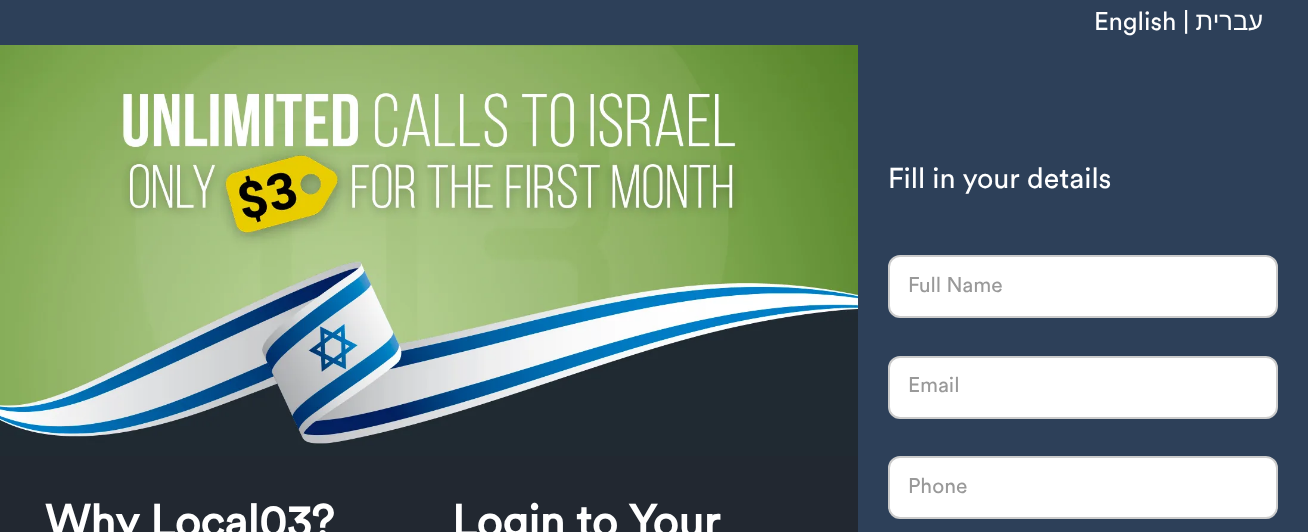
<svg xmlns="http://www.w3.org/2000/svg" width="1308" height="532">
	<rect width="100%" height="100%" fill="#2D4059" />
	<text x="1094" y="30" font-family="Circular" font-size="25.5" fill="#FFFFFF">English |</text>
	<text x="1263" y="30" font-family="Liberation Sans" font-size="25.5" direction="rtl" fill="#FFFFFF">עברית</text>
	<text x="888" y="188" font-family="Circular" font-size="28.5" fill="#FFFFFF">Fill in your details</text>
	<rect x="889" y="256" width="388" height="61" rx="11" fill="#FFFFFF" stroke="#CCCCCC" stroke-width="2" />
	<text x="908" y="292" font-family="Circular" font-size="21" fill="#999999">Full Name</text>
	<rect x="889" y="357" width="388" height="61" rx="11" fill="#FFFFFF" stroke="#CCCCCC" stroke-width="2" />
	<text x="908" y="392" font-family="Circular" font-size="21" fill="#999999">Email</text>
	<rect x="889" y="457" width="388" height="61" rx="11" fill="#FFFFFF" stroke="#CCCCCC" stroke-width="2" />
	<text x="908" y="493" font-family="Circular" font-size="21" fill="#999999">Phone</text>
	<image x="0" y="45" width="858" height="411" href="assets/img1.png" />
	<rect x="0" y="456" width="858" height="76" fill="#222831" />
	<g font-family="Circular" font-size="45" font-weight="700" fill="#FFFFFF">
		<text x="45" y="537">Why Local03?</text>
		<text x="452" y="537">Login to Your</text>
	</g>
</svg>
